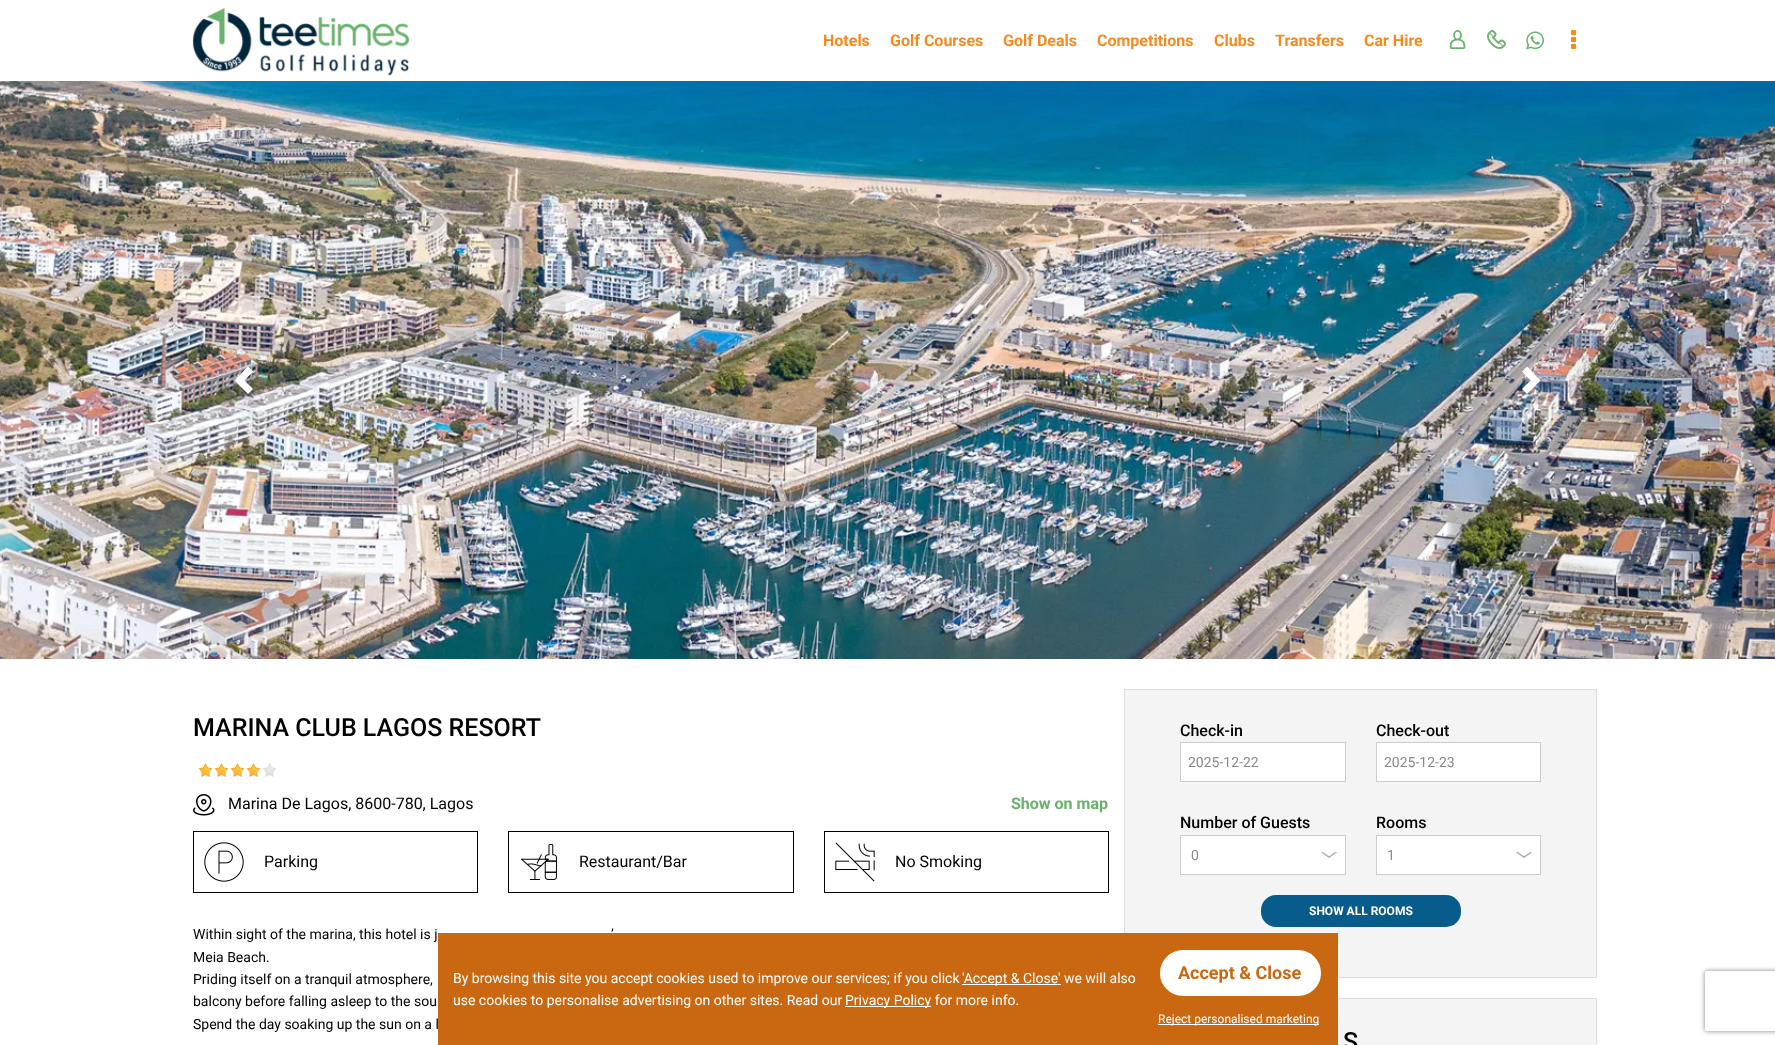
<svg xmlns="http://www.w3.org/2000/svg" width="1775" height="1045">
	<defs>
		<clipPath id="clip1"><path d="M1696 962H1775V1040H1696ZM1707 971H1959C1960 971 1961 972 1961 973V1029C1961 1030 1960 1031 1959 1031H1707C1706 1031 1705 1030 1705 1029V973C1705 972 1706 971 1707 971Z" clip-rule="evenodd" /></clipPath>
	</defs>
	<rect width="100%" height="100%" fill="#FFFFFF" />
	<image x="192" y="8" width="218" height="68" href="assets/img1.png" />
	<g font-family="Roboto" font-size="16" font-weight="700" fill="#F58A1F">
		<text x="823" y="46">Hotels</text>
		<text x="890" y="46">Golf Courses</text>
		<text x="1003" y="46">Golf Deals</text>
		<text x="1097" y="46">Competitions</text>
		<text x="1214" y="46">Clubs</text>
		<text x="1275" y="46">Transfers</text>
		<text x="1364" y="46">Car Hire</text>
	</g>
	<image x="1449" y="30" width="17" height="19" href="assets/img2.png" />
	<image x="1487" y="30" width="19" height="19" href="assets/img3.png" />
	<image x="1526" y="31" width="18" height="19" href="assets/img4.png" />
	<image x="1570" y="30" width="7" height="19" href="assets/img5.png" />
	<image x="0" y="81" width="1775" height="578" href="assets/img6.png" />
	<path d="M253 371.5L244.5 380.5L253 389L248 394L234.5 380.5L248 366.5Z" fill="#FFFFFF" />
	<path d="M1540.5 380.5L1527 394L1522 389L1530.5 380.5L1522 371.5L1527 366.5Z" fill="#FFFFFF" />
	<text x="193" y="736" font-family="Roboto" font-size="25" font-weight="500" fill="#000000">MARINA CLUB LAGOS RESORT</text>
	<image x="198" y="763" width="79" height="14" href="assets/img7.png" />
	<image x="193" y="794" width="22" height="22" href="assets/img8.png" />
	<text x="228" y="809" font-family="Roboto" font-size="16" fill="#000000">Marina De Lagos, 8600-780, Lagos</text>
	<text x="1011" y="809" font-family="Roboto" font-size="16" font-weight="700" fill="#69B26C">Show on map</text>
	<rect x="193.5" y="831.5" width="284" height="61" fill="none" stroke="#000000" />
	<image x="204" y="842" width="40" height="40" href="assets/img9.png" />
	<text x="264" y="867" font-family="Roboto" font-size="16" fill="#000000">Parking</text>
	<rect x="508.5" y="831.5" width="285" height="61" fill="none" stroke="#000000" />
	<image x="521" y="844" width="36" height="36" href="assets/img10.png" />
	<text x="579" y="867" font-family="Roboto" font-size="16" fill="#000000">Restaurant/Bar</text>
	<rect x="824.5" y="831.5" width="284" height="61" fill="none" stroke="#000000" />
	<image x="835" y="842" width="40" height="40" href="assets/img11.png" />
	<text x="895" y="867" font-family="Roboto" font-size="16" fill="#000000">No Smoking</text>
	<g font-family="Roboto" font-size="14" fill="#000000">
		<text x="193" y="939">Within sight of the marina, this hotel is j</text>
		<text x="611" y="939">’</text>
		<text x="193" y="962">Meia Beach.</text>
		<text x="193" y="984">Priding itself on a tranquil atmosphere,</text>
		<text x="193" y="1006">balcony before falling asleep to the sou</text>
		<text x="193" y="1029">Spend the day soaking up the sun on a l</text>
	</g>
	<rect x="1124.5" y="689.5" width="472" height="288" fill="#F4F4F5" stroke="#DDDDDD" />
	<text x="1180" y="736" font-family="Roboto" font-size="16" font-weight="500" fill="#000000">Check-in</text>
	<rect x="1180.5" y="742.5" width="165" height="39" fill="#FFFFFF" stroke="#CCCCCC" />
	<text x="1188" y="767" font-family="Roboto" font-size="14" fill="#8A8A8A">2025-12-22</text>
	<text x="1376" y="736" font-family="Roboto" font-size="16" font-weight="500" fill="#000000">Check-out</text>
	<rect x="1376.5" y="742.5" width="164" height="39" fill="#FFFFFF" stroke="#CCCCCC" />
	<text x="1384" y="767" font-family="Roboto" font-size="14" fill="#8A8A8A">2025-12-23</text>
	<text x="1180" y="828" font-family="Roboto" font-size="16" font-weight="500" fill="#000000">Number of Guests</text>
	<rect x="1181" y="836" width="164" height="38" fill="#FFFFFF" />
	<image x="1321" y="852" width="16" height="6" href="assets/img12.png" />
	<rect x="1180.5" y="835.5" width="165" height="39" fill="none" stroke="#CCCCCC" />
	<text x="1191" y="860" font-family="Roboto" font-size="14" fill="#8A8A8A">0</text>
	<text x="1376" y="828" font-family="Roboto" font-size="16" font-weight="500" fill="#000000">Rooms</text>
	<rect x="1377" y="836" width="163" height="38" fill="#FFFFFF" />
	<image x="1516" y="852" width="16" height="6" href="assets/img12.png" />
	<rect x="1376.5" y="835.5" width="164" height="39" fill="none" stroke="#CCCCCC" />
	<text x="1387" y="860" font-family="Roboto" font-size="14" fill="#8A8A8A">1</text>
	<rect x="1261" y="895" width="200" height="32" rx="15" fill="#085C8B" />
	<text x="1309" y="915" font-family="Roboto" font-size="12" font-weight="700" fill="#FFFFFF">SHOW ALL ROOMS</text>
	<rect x="1338" y="999" width="258" height="46" fill="#F4F4F5" />
	<rect x="1124.5" y="998.5" width="472" height="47" fill="none" stroke="#DDDDDD" />
	<text x="1343" y="1050" font-family="Roboto" font-size="25" font-weight="500" fill="#000000">S</text>
	<g clip-path="url(#clip1)">
		<rect x="1705" y="971" width="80" height="60" rx="2" fill="#808080" filter="blur(2.5px)" />
	</g>
	<rect x="438" y="933" width="900" height="112" fill="#C96810" />
	<text x="453" y="983" font-family="Roboto" font-size="14" fill="#FFFFFF">By browsing this site you accept cookies used to improve our services; if you click</text>
	<rect x="962" y="984" width="99" height="1" fill="#FFFFFF" />
	<g font-family="Roboto" font-size="14" fill="#FFFFFF">
		<text x="962" y="983">'Accept &amp; Close' we will also</text>
		<text x="453" y="1005">use cookies to personalise advertising on other sites. Read our</text>
	</g>
	<rect x="845" y="1006" width="86" height="1" fill="#FFFFFF" />
	<text x="845" y="1005" font-family="Roboto" font-size="14" fill="#FFFFFF">Privacy Policy for more info.</text>
	<rect x="1159" y="949" width="163" height="48" rx="24" fill="#FFFFFF" stroke="#C96810" stroke-width="2" />
	<text x="1178" y="979" font-family="Roboto" font-size="18" font-weight="700" fill="#C96810">Accept &amp; Close</text>
	<rect x="1158" y="1024" width="161" height="1" fill="#FFFFFF" />
	<text x="1158" y="1023" font-family="Roboto" font-size="12" fill="#FFFFFF">Reject personalised marketing</text>
</svg>
